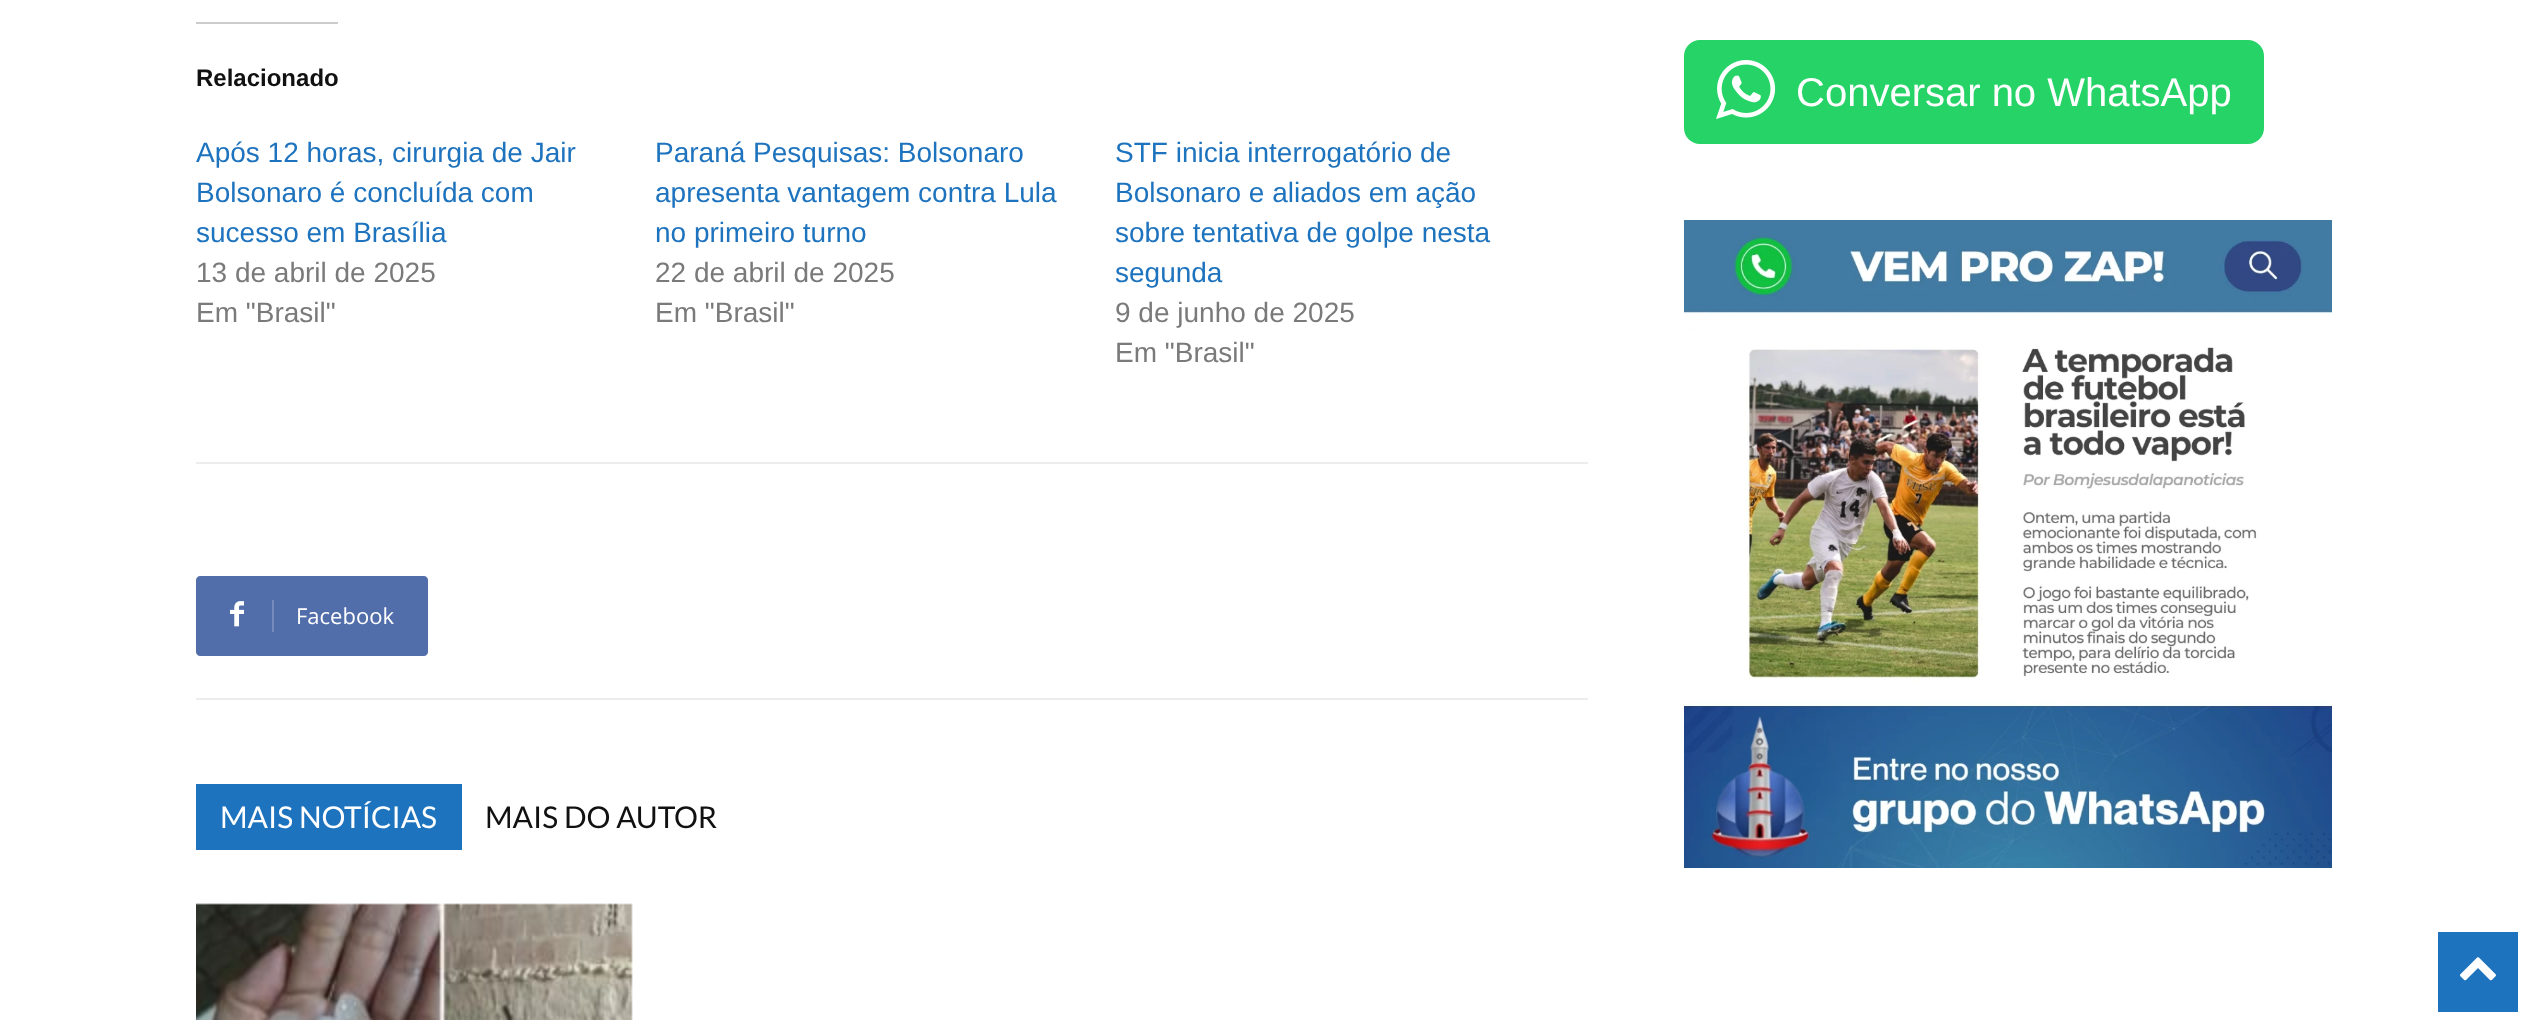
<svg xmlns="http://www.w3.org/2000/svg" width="2527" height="1020">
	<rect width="100%" height="100%" fill="#FFFFFF" />
	<rect x="196" y="22" width="142" height="2" fill="#CCCCCC" />
	<text x="196" y="86" font-family="Liberation Sans" font-size="24" font-weight="700" fill="#111111">Relacionado</text>
	<g font-family="Liberation Sans" font-size="28" fill="#1E73BE">
		<text x="196" y="162">Após 12 horas, cirurgia de Jair</text>
		<text x="196" y="202">Bolsonaro é concluída com</text>
		<text x="196" y="242">sucesso em Brasília</text>
	</g>
	<g font-family="Liberation Sans" font-size="28" fill="#7A7A7A">
		<text x="196" y="282">13 de abril de 2025</text>
		<text x="196" y="322">Em "Brasil"</text>
	</g>
	<g font-family="Liberation Sans" font-size="28" fill="#1E73BE">
		<text x="655" y="162">Paraná Pesquisas: Bolsonaro</text>
		<text x="655" y="202">apresenta vantagem contra Lula</text>
		<text x="655" y="242">no primeiro turno</text>
	</g>
	<g font-family="Liberation Sans" font-size="28" fill="#7A7A7A">
		<text x="655" y="282">22 de abril de 2025</text>
		<text x="655" y="322">Em "Brasil"</text>
	</g>
	<g font-family="Liberation Sans" font-size="28" fill="#1E73BE">
		<text x="1115" y="162">STF inicia interrogatório de</text>
		<text x="1115" y="202">Bolsonaro e aliados em ação</text>
		<text x="1115" y="242">sobre tentativa de golpe nesta</text>
		<text x="1115" y="282">segunda</text>
	</g>
	<g font-family="Liberation Sans" font-size="28" fill="#7A7A7A">
		<text x="1115" y="322">9 de junho de 2025</text>
		<text x="1115" y="362">Em "Brasil"</text>
	</g>
	<rect x="196" y="462" width="1392" height="2" fill="#EDEDED" />
	<rect x="196" y="698" width="1392" height="2" fill="#EDEDED" />
	<path d="M272 576H424C426 576 428 578 428 580V652C428 654 426 656 424 656H272Z" fill="#516EAB" />
	<path d="M200 576H278V656H200C198 656 196 654 196 652V580C196 578 198 576 200 576Z" fill="#516EAB" />
	<image x="230" y="601" width="14" height="26" href="assets/img1.png" />
	<rect x="272" y="600" width="2" height="32" fill="#748BBC" />
	<text x="296" y="624" font-family="Open Sans" font-size="22" fill="#FFFFFF">Facebook</text>
	<rect x="196" y="784" width="266" height="66" fill="#1E73BE" />
	<text x="220" y="828" font-family="Lato" font-size="30" fill="#FFFFFF">MAIS NOTÍCIAS</text>
	<text x="485" y="828" font-family="Lato" font-size="30" fill="#111111">MAIS DO AUTOR</text>
	<image x="196" y="903" width="437" height="117" href="assets/img2.png" />
	<rect x="1684" y="40" width="580" height="104" rx="16" fill="#25D366" />
	<image x="1716" y="60" width="60" height="59" href="assets/img3.png" />
	<text x="1796" y="106" font-family="Liberation Sans" font-size="40" fill="#FFFFFF">Conversar no WhatsApp</text>
	<image x="1684" y="220" width="648" height="648" href="assets/img4.png" />
	<rect x="2438" y="932" width="80" height="80" fill="#1E73BE" />
	<image x="2460" y="957" width="36" height="24" href="assets/img5.png" />
</svg>
